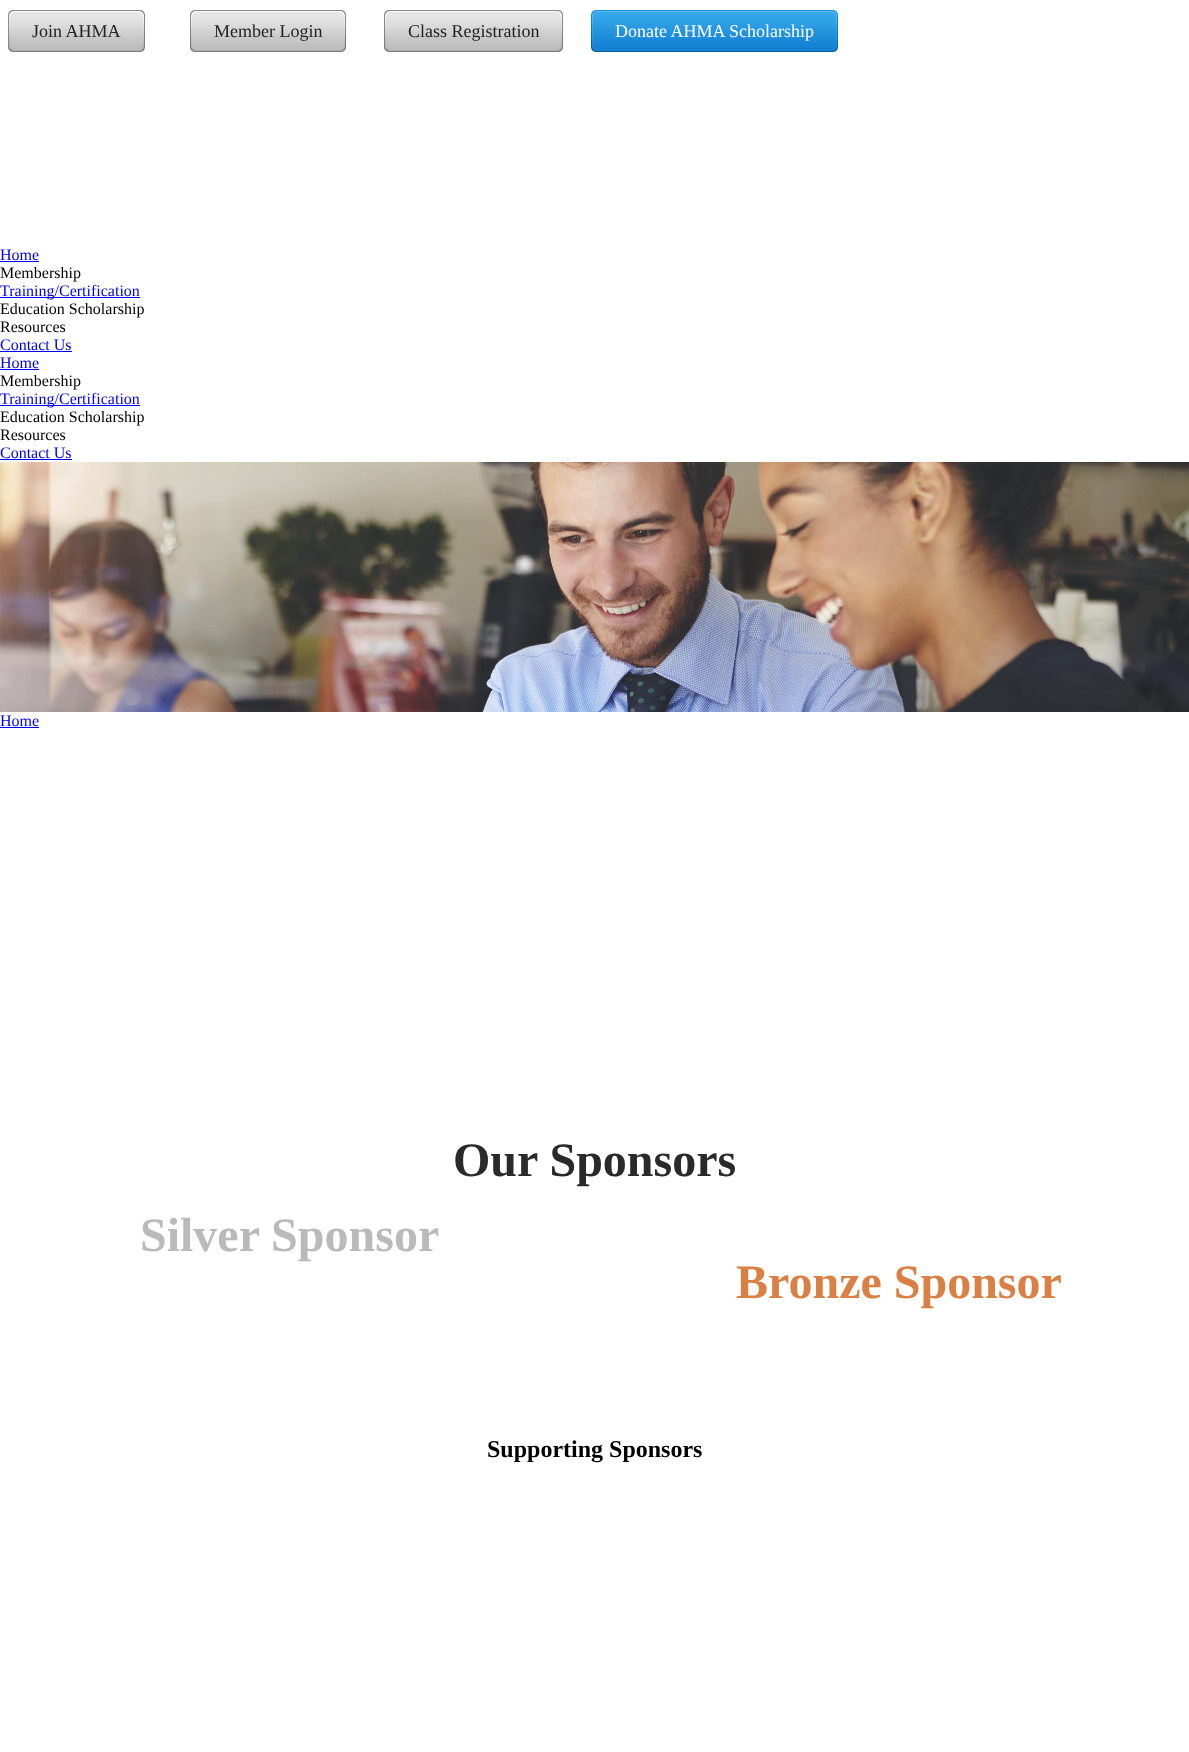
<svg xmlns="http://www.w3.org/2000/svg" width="1189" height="1752">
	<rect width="100%" height="100%" fill="#FFFFFF" />
	<image x="127" y="10" width="18" height="42" href="assets/img1.png" />
	<image x="8" y="10" width="119" height="42" href="assets/img2.png" />
	<text x="32" y="37" font-family="Liberation Serif" font-size="18" fill="#222222">Join AHMA</text>
	<image x="329" y="10" width="18" height="42" href="assets/img3.png" />
	<image x="190" y="10" width="139" height="42" href="assets/img4.png" />
	<text x="214" y="37" font-family="Liberation Serif" font-size="18" fill="#222222">Member Login</text>
	<image x="546" y="10" width="18" height="42" href="assets/img3.png" />
	<image x="384" y="10" width="162" height="42" href="assets/img5.png" />
	<text x="408" y="37" font-family="Liberation Serif" font-size="18" fill="#222222">Class Registration</text>
	<image x="824" y="10" width="14" height="42" href="assets/img6.png" />
	<image x="591" y="10" width="233" height="42" href="assets/img7.png" />
	<text x="615" y="37" font-family="Liberation Serif" font-size="18" fill="#FFFFFF">Donate AHMA Scholarship</text>
	<text x="0" y="260" font-family="Liberation Serif" font-size="16" fill="#0000EE">Home</text>
	<rect x="0" y="261" width="39" height="1" fill="#0000EE" />
	<text x="0" y="278" font-family="Liberation Serif" font-size="16" fill="#000000">Membership</text>
	<rect x="0" y="297" width="140" height="1" fill="#0000EE" />
	<text x="0" y="296" font-family="Liberation Serif" font-size="16" fill="#0000EE">Training/Certification</text>
	<g font-family="Liberation Serif" font-size="16" fill="#000000">
		<text x="0" y="314">Education Scholarship</text>
		<text x="0" y="332">Resources</text>
	</g>
	<text x="0" y="350" font-family="Liberation Serif" font-size="16" fill="#0000EE">Contact Us</text>
	<rect x="0" y="351" width="72" height="1" fill="#0000EE" />
	<text x="0" y="368" font-family="Liberation Serif" font-size="16" fill="#0000EE">Home</text>
	<rect x="0" y="369" width="39" height="1" fill="#0000EE" />
	<text x="0" y="386" font-family="Liberation Serif" font-size="16" fill="#000000">Membership</text>
	<rect x="0" y="405" width="140" height="1" fill="#0000EE" />
	<text x="0" y="404" font-family="Liberation Serif" font-size="16" fill="#0000EE">Training/Certification</text>
	<g font-family="Liberation Serif" font-size="16" fill="#000000">
		<text x="0" y="422">Education Scholarship</text>
		<text x="0" y="440">Resources</text>
	</g>
	<text x="0" y="458" font-family="Liberation Serif" font-size="16" fill="#0000EE">Contact Us</text>
	<rect x="0" y="459" width="72" height="1" fill="#0000EE" />
	<image x="0" y="462" width="1189" height="250" href="assets/img8.png" />
	<text x="0" y="726" font-family="Liberation Serif" font-size="16" fill="#0000EE">Home</text>
	<rect x="0" y="727" width="39" height="1" fill="#0000EE" />
	<text x="453" y="1176" font-family="Liberation Serif" font-size="48" font-weight="700" fill="#2A2A2A">Our Sponsors</text>
	<text x="140" y="1251" font-family="Liberation Serif" font-size="48" font-weight="700" fill="#BBBABA">Silver Sponsor</text>
	<text x="736" y="1298" font-family="Liberation Serif" font-size="48" font-weight="700" fill="#DA8044">Bronze Sponsor</text>
	<text x="487" y="1457" font-family="Liberation Serif" font-size="24" font-weight="700" fill="#000000">Supporting Sponsors</text>
</svg>
